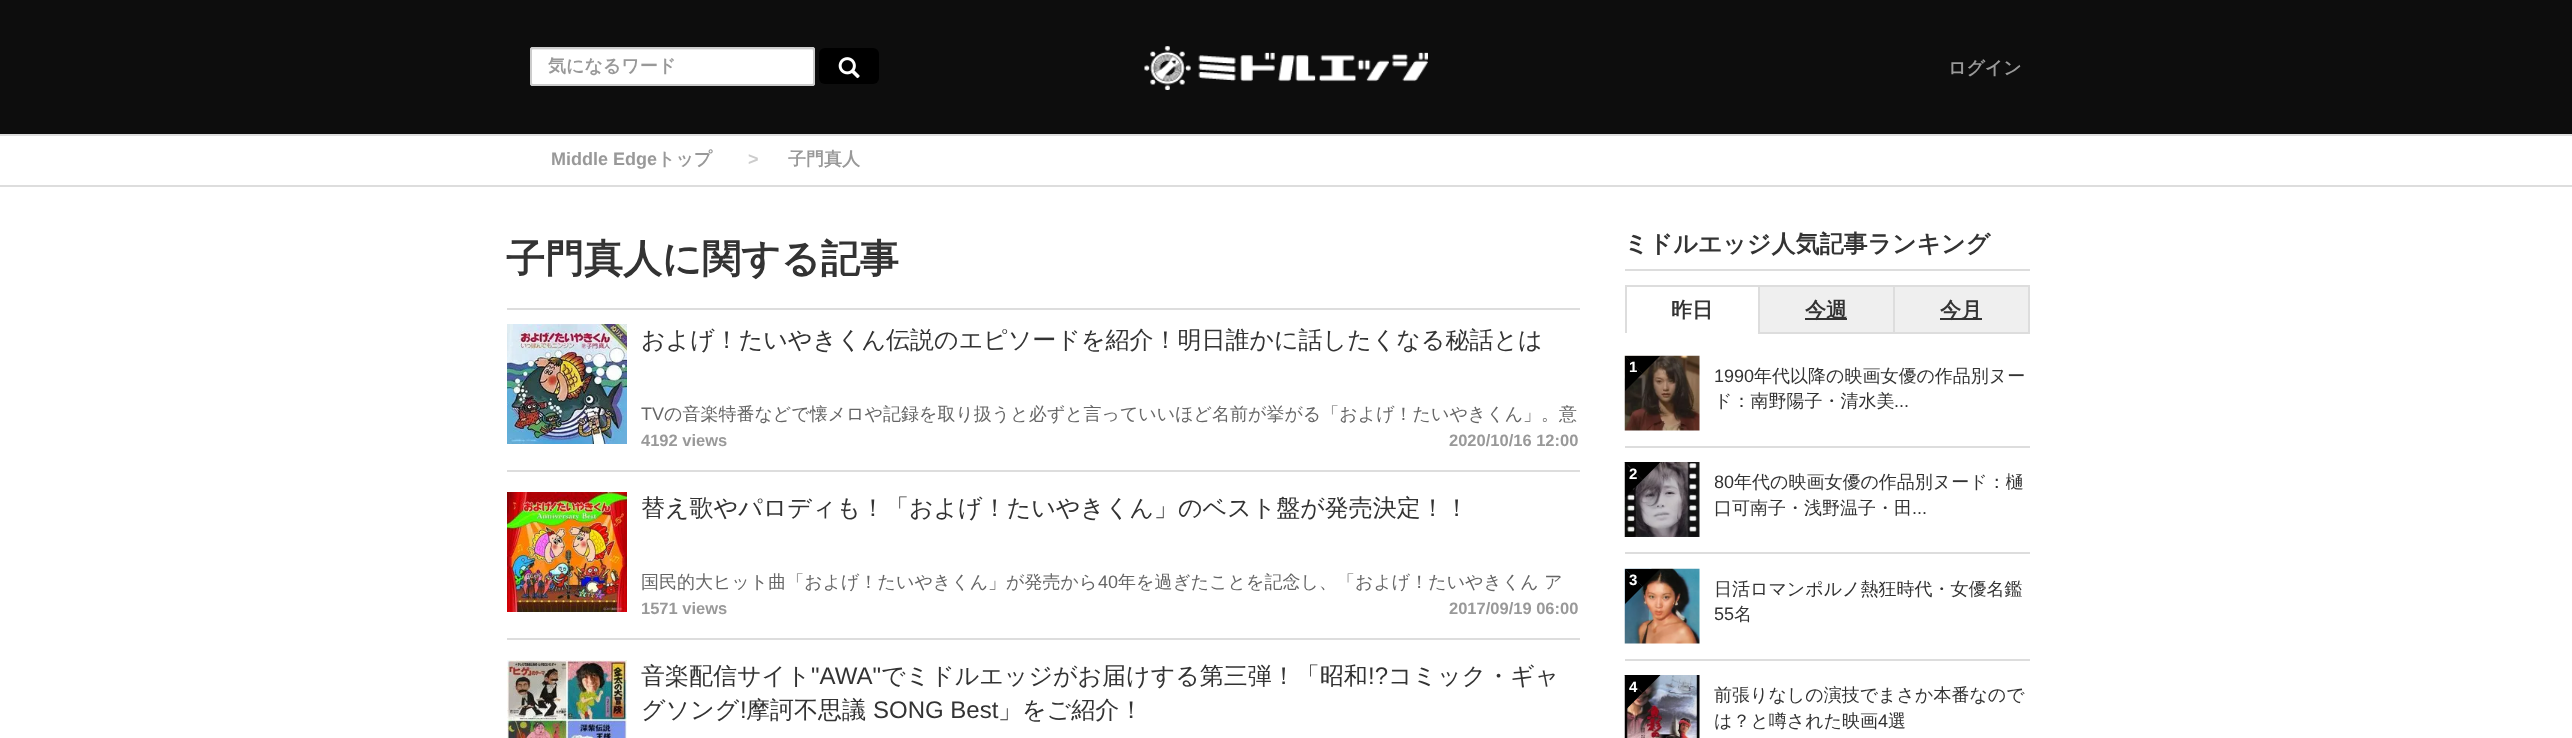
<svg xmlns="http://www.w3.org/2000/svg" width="2572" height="738">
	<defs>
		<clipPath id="clip1"><rect x="1625" y="356" width="405" height="90" /></clipPath>
		<clipPath id="clip2"><rect x="1625" y="462" width="405" height="90" /></clipPath>
		<clipPath id="clip3"><rect x="1715" y="471" width="315" height="54" /></clipPath>
		<clipPath id="clip4"><rect x="1625" y="569" width="405" height="90" /></clipPath>
		<clipPath id="clip5"><rect x="1715" y="578" width="315" height="54" /></clipPath>
		<clipPath id="clip6"><rect x="1625" y="675" width="405" height="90" /></clipPath>
	</defs>
	<rect width="100%" height="100%" fill="#FFFFFF" />
	<rect x="0" y="0" width="2572" height="134" fill="#0D0D0D" />
	<rect x="0" y="134" width="2572" height="2" fill="#DDDDDD" />
	<rect x="530" y="47" width="285" height="39" rx="3" fill="#FFFFFF" />
	<path d="M532 50H812L813 51C813 50 813 48 812 48H532H531V51Z" fill="#ECECEC" />
	<rect x="531" y="48" width="283" height="37" rx="2" fill="none" stroke="#CCCCCC" stroke-width="2" />
	<text x="548" y="72" font-family="WenQuanYi Zen Hei" font-size="18" font-weight="700" fill="#999999">気になるワード</text>
	<rect x="819" y="48" width="60" height="36" rx="6" fill="#000000" />
	<image x="838" y="57" width="22" height="22" href="assets/img1.png" />
	<image x="1144" y="46" width="284" height="44" href="assets/img2.png" />
	<text x="1948" y="74" font-family="WenQuanYi Zen Hei" font-size="18" font-weight="700" fill="#999999">ログイン</text>
	<rect x="0" y="185" width="2572" height="2" fill="#DDDDDD" />
	<text x="551" y="165" font-family="Liberation Sans" font-size="18" font-weight="700" fill="#999999">Middle Edge</text>
	<text x="657" y="165" font-family="WenQuanYi Zen Hei" font-size="18" font-weight="700" fill="#999999">トップ</text>
	<text x="748" y="165" font-family="Liberation Sans" font-size="18" font-weight="700" fill="#CCCCCC">&gt;</text>
	<text x="788" y="165" font-family="WenQuanYi Zen Hei" font-size="18" font-weight="700" fill="#999999">子門真人</text>
	<text x="506" y="272" font-family="WenQuanYi Zen Hei" font-size="39" font-weight="700" fill="#333333">子門真人に関する記事</text>
	<rect x="507" y="308" width="1073" height="2" fill="#DDDDDD" />
	<image x="507" y="324" width="120" height="120" href="assets/img3.png" />
	<text x="641" y="348" font-family="WenQuanYi Zen Hei" font-size="24" font-weight="500" fill="#333333">およげ！たいやきくん伝説のエピソードを紹介！明日誰かに話したくなる秘話とは</text>
	<text x="641" y="420" font-family="Liberation Sans" font-size="18" fill="#666666">TV</text>
	<text x="664" y="420" font-family="WenQuanYi Zen Hei" font-size="18" font-weight="500" fill="#666666">の音楽特番などで懐メロや記録を取り扱うと必ずと言っていいほど名前が挙がる「およげ！たいやきくん」。意</text>
	<g font-family="Liberation Sans" font-size="16.5" font-weight="700" fill="#999999">
		<text x="641" y="446">4192 views</text>
		<text x="1449" y="446">2020/10/16 12:00</text>
	</g>
	<rect x="507" y="470" width="1073" height="2" fill="#DDDDDD" />
	<image x="507" y="492" width="120" height="120" href="assets/img4.png" />
	<text x="641" y="516" font-family="WenQuanYi Zen Hei" font-size="24" font-weight="500" fill="#333333">替え歌やパロディも！「およげ！たいやきくん」のベスト盤が発売決定！！</text>
	<text x="641" y="588" font-family="WenQuanYi Zen Hei" font-size="18" font-weight="500" fill="#666666">国民的大ヒット曲「およげ！たいやきくん」が発売から</text>
	<text x="1098" y="588" font-family="Liberation Sans" font-size="18" fill="#666666">40</text>
	<text x="1118" y="588" font-family="WenQuanYi Zen Hei" font-size="18" font-weight="500" fill="#666666">年を過ぎたことを記念し、「およげ！たいやきくん ア</text>
	<g font-family="Liberation Sans" font-size="16.5" font-weight="700" fill="#999999">
		<text x="641" y="614">1571 views</text>
		<text x="1449" y="614">2017/09/19 06:00</text>
	</g>
	<rect x="507" y="638" width="1073" height="2" fill="#DDDDDD" />
	<image x="507" y="660" width="120" height="78" href="assets/img5.png" />
	<text x="641" y="684" font-family="WenQuanYi Zen Hei" font-size="24" font-weight="500" fill="#333333">音楽配信サイト</text>
	<text x="811" y="684" font-family="Liberation Sans" font-size="24" fill="#333333">"AWA"</text>
	<text x="881" y="684" font-family="WenQuanYi Zen Hei" font-size="24" font-weight="500" fill="#333333">でミドルエッジがお届けする第三弾！「昭和</text>
	<text x="1368" y="684" font-family="Liberation Sans" font-size="24" fill="#333333">!?</text>
	<g font-family="WenQuanYi Zen Hei" font-size="24" font-weight="500" fill="#333333">
		<text x="1388" y="684">コミック・ギャ</text>
		<text x="641" y="718">グソング</text>
	</g>
	<text x="740" y="718" font-family="Liberation Sans" font-size="24" fill="#333333">!</text>
	<text x="746" y="718" font-family="WenQuanYi Zen Hei" font-size="24" font-weight="500" fill="#333333">摩訶不思議</text>
	<text x="873" y="718" font-family="Liberation Sans" font-size="24" fill="#333333">SONG Best</text>
	<text x="998" y="718" font-family="WenQuanYi Zen Hei" font-size="24" font-weight="500" fill="#333333">」をご紹介！</text>
	<text x="1624" y="252" font-family="WenQuanYi Zen Hei" font-size="24" font-weight="700" fill="#333333">ミドルエッジ人気記事ランキング</text>
	<rect x="1625" y="269" width="405" height="2" fill="#DDDDDD" />
	<rect x="1893" y="285" width="137" height="2" fill="#DDDDDD" />
	<rect x="2028" y="285" width="2" height="48" fill="#DDDDDD" />
	<rect x="1893" y="332" width="137" height="2" fill="#DDDDDD" />
	<rect x="1893" y="285" width="2" height="48" fill="#DDDDDD" />
	<rect x="1758" y="285" width="137" height="2" fill="#DDDDDD" />
	<rect x="1758" y="332" width="137" height="2" fill="#DDDDDD" />
	<rect x="1758" y="285" width="2" height="48" fill="#DDDDDD" />
	<rect x="1625" y="285" width="135" height="2" fill="#DDDDDD" />
	<rect x="1625" y="285" width="2" height="48" fill="#DDDDDD" />
	<text x="1671" y="317" font-family="WenQuanYi Zen Hei" font-size="21" font-weight="700" fill="#333333">昨日</text>
	<rect x="1760" y="287" width="133" height="45" fill="#EFEFEF" />
	<rect x="1805" y="318" width="42" height="2" fill="#333333" />
	<text x="1805" y="317" font-family="WenQuanYi Zen Hei" font-size="21" font-weight="700" fill="#333333">今週</text>
	<rect x="1895" y="287" width="133" height="45" fill="#EFEFEF" />
	<rect x="1940" y="318" width="42" height="2" fill="#333333" />
	<text x="1940" y="317" font-family="WenQuanYi Zen Hei" font-size="21" font-weight="700" fill="#333333">今月</text>
	<rect x="1625" y="446" width="405" height="2" fill="#DDDDDD" />
	<image x="1624" y="355" width="76" height="76" href="assets/img6.png" />
	<g clip-path="url(#clip1)">
		<path d="M1624.5 355.5H1660.5L1642.5 373.5Z" fill="#000000" />
		<path d="M1624.5 391.5V355.5L1642.5 373.5Z" fill="#000000" />
	</g>
	<text x="1629" y="372" font-family="Liberation Sans" font-size="15" font-weight="700" fill="#FFFFFF">1</text>
	<text x="1714" y="382" font-family="Liberation Sans" font-size="18" fill="#333333">1990</text>
	<g font-family="WenQuanYi Zen Hei" font-size="18" font-weight="500" fill="#333333">
		<text x="1754" y="382">年代以降の映画女優の作品別ヌー</text>
		<text x="1714" y="407">ド：南野陽子・清水美</text>
	</g>
	<text x="1894" y="407" font-family="Liberation Sans" font-size="18" fill="#333333">...</text>
	<rect x="1625" y="552" width="405" height="2" fill="#DDDDDD" />
	<image x="1624" y="462" width="76" height="75" href="assets/img7.png" />
	<path d="M1624.5 462H1660.5L1642.5 480Z" fill="#000000" />
	<g clip-path="url(#clip2)">
		<path d="M1624.5 498V462L1642.5 480Z" fill="#000000" />
	</g>
	<text x="1629" y="479" font-family="Liberation Sans" font-size="15" font-weight="700" fill="#FFFFFF">2</text>
	<g clip-path="url(#clip3)">
		<text x="1714" y="488" font-family="Liberation Sans" font-size="18" fill="#333333">80</text>
	</g>
	<g font-family="WenQuanYi Zen Hei" font-size="18" font-weight="500" fill="#333333">
		<text x="1734" y="488">年代の映画女優の作品別ヌード：樋</text>
		<text x="1714" y="514">口可南子・浅野温子・田</text>
	</g>
	<text x="1912" y="514" font-family="Liberation Sans" font-size="18" fill="#333333">...</text>
	<rect x="1625" y="659" width="405" height="2" fill="#DDDDDD" />
	<image x="1624" y="568" width="76" height="76" href="assets/img8.png" />
	<g clip-path="url(#clip4)">
		<path d="M1624.5 568.5H1660.5L1642.5 586.5Z" fill="#000000" />
		<path d="M1624.5 604.5V568.5L1642.5 586.5Z" fill="#000000" />
	</g>
	<text x="1629" y="585" font-family="Liberation Sans" font-size="15" font-weight="700" fill="#FFFFFF">3</text>
	<text x="1714" y="595" font-family="WenQuanYi Zen Hei" font-size="18" font-weight="500" fill="#333333">日活ロマンポルノ熱狂時代・女優名鑑</text>
	<g clip-path="url(#clip5)">
		<text x="1714" y="620" font-family="Liberation Sans" font-size="18" fill="#333333">55</text>
	</g>
	<text x="1734" y="620" font-family="WenQuanYi Zen Hei" font-size="18" font-weight="500" fill="#333333">名</text>
	<image x="1624" y="675" width="76" height="63" href="assets/img9.png" />
	<path d="M1624.5 675H1660.5L1642.5 693Z" fill="#000000" />
	<g clip-path="url(#clip6)">
		<path d="M1624.5 711V675L1642.5 693Z" fill="#000000" />
	</g>
	<text x="1629" y="692" font-family="Liberation Sans" font-size="15" font-weight="700" fill="#FFFFFF">4</text>
	<g font-family="WenQuanYi Zen Hei" font-size="18" font-weight="500" fill="#333333">
		<text x="1714" y="701">前張りなしの演技でまさか本番なので</text>
		<text x="1714" y="727">は？と噂された映画</text>
	</g>
	<text x="1878" y="727" font-family="Liberation Sans" font-size="18" fill="#333333">4</text>
	<text x="1888" y="727" font-family="WenQuanYi Zen Hei" font-size="18" font-weight="500" fill="#333333">選</text>
</svg>
